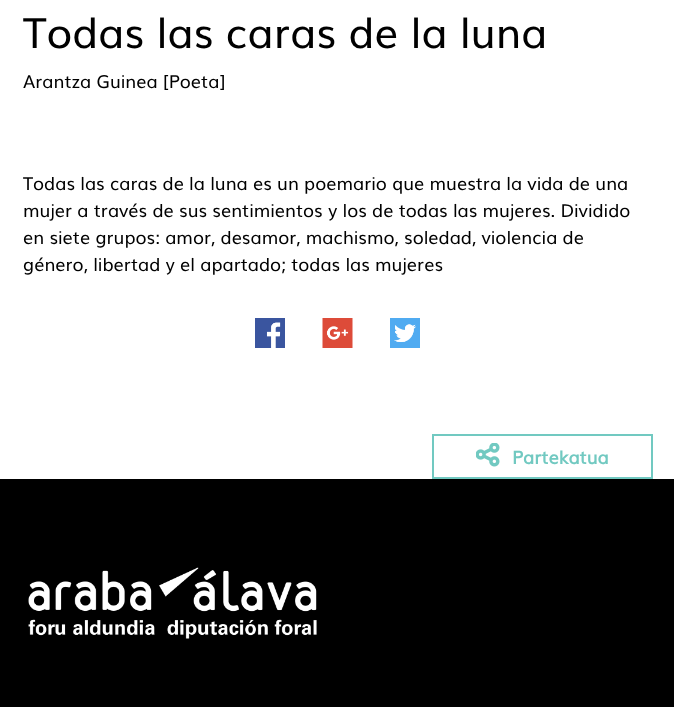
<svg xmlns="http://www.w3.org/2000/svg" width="674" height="707">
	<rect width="100%" height="100%" fill="#FFFFFF" />
	<text x="23" y="48" font-family="Muli" font-size="42" fill="#000000">Todas las caras de la luna</text>
	<g font-family="Muli" font-size="18" fill="#000000">
		<text x="23" y="88">Arantza Guinea [Poeta]</text>
		<text x="23" y="190">Todas las caras de la luna es un poemario que muestra la vida de una</text>
		<text x="23" y="217">mujer a través de sus sentimientos y los de todas las mujeres. Dividido</text>
		<text x="23" y="244">en siete grupos: amor, desamor, machismo, soledad, violencia de</text>
		<text x="23" y="271">género, libertad y el apartado; todas las mujeres</text>
	</g>
	<image x="255" y="318" width="30" height="30" href="assets/img1.png" />
	<image x="322" y="318" width="31" height="30" href="assets/img2.png" />
	<image x="390" y="318" width="30" height="30" href="assets/img3.png" />
	<rect x="433" y="435" width="219" height="43" fill="none" stroke="#71C9C1" stroke-width="2" />
	<image x="476" y="443" width="24" height="24" href="assets/img4.png" />
	<text x="512" y="464" font-family="Muli" font-size="18" font-weight="700" fill="#71C9C1">Partekatua</text>
	<rect x="0" y="479" width="674" height="228" fill="#000000" />
	<image x="28" y="567" width="289" height="72" href="assets/img5.png" />
</svg>
